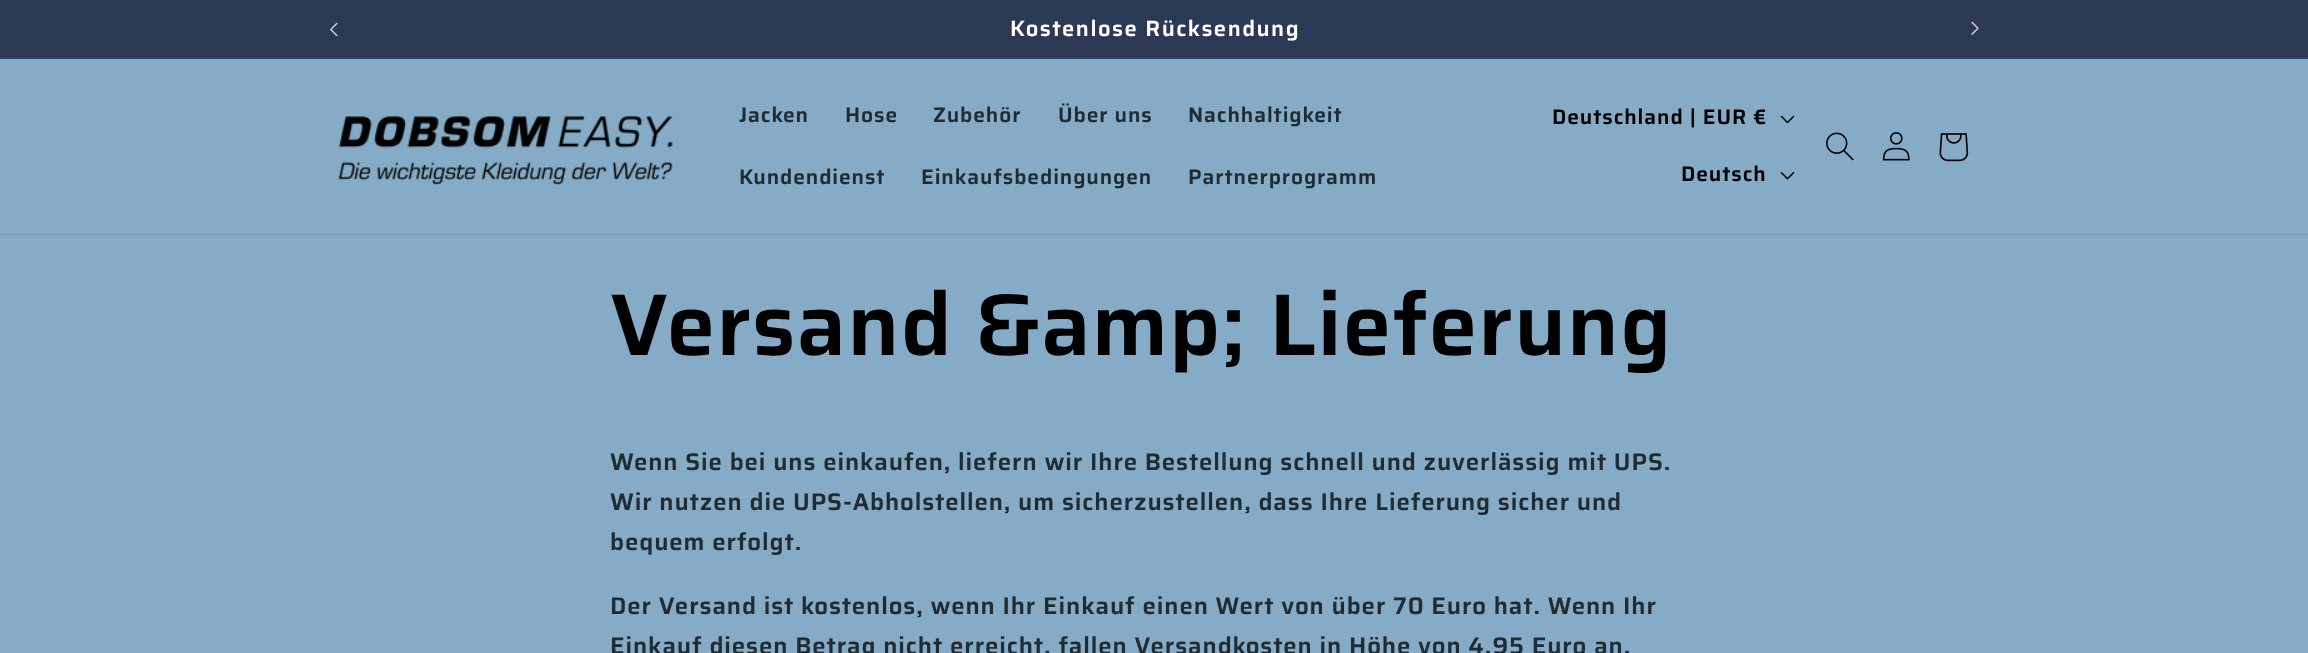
<svg xmlns="http://www.w3.org/2000/svg" width="2308" height="653">
	<rect width="100%" height="100%" fill="#85ABC6" />
	<rect x="0" y="0" width="2308" height="58" fill="#2B3955" />
	<rect x="0" y="58" width="2308" height="1" fill="#3C4963" />
	<image x="330" y="22" width="8" height="15" href="assets/img1.png" />
	<text x="1010" y="36" font-family="Saira" font-size="22" font-weight="600" letter-spacing="1.5" fill="#FFFFFF">Kostenlose Rücksendung</text>
	<image x="1971" y="21" width="8" height="14" href="assets/img2.png" />
	<rect x="0" y="234" width="2308" height="1" fill="#7A9DB6" />
	<image x="338" y="115" width="335" height="70" href="assets/img3.png" />
	<g font-family="Saira" font-size="21" font-weight="600" letter-spacing="0.9" fill="#212B32">
		<text x="739" y="122">Jacken</text>
		<text x="845" y="122">Hose</text>
		<text x="933" y="122">Zubehör</text>
		<text x="1058" y="122">Über uns</text>
		<text x="1188" y="122">Nachhaltigkeit</text>
		<text x="739" y="184">Kundendienst</text>
		<text x="921" y="184">Einkaufsbedingungen</text>
		<text x="1188" y="184">Partnerprogramm</text>
	</g>
	<text x="1552" y="124" font-family="Saira" font-size="21" font-weight="600" letter-spacing="0.9" fill="#000000">Deutschland | EUR €</text>
	<image x="1780" y="115" width="15" height="9" href="assets/img4.png" />
	<text x="1681" y="181" font-family="Saira" font-size="21" font-weight="600" letter-spacing="0.9" fill="#000000">Deutsch</text>
	<image x="1780" y="172" width="15" height="8" href="assets/img5.png" />
	<image x="1826" y="132" width="28" height="29" href="assets/img6.png" />
	<image x="1882" y="132" width="28" height="29" href="assets/img7.png" />
	<image x="1939" y="133" width="30" height="29" href="assets/img8.png" />
	<text x="610" y="355" font-family="Saira" font-size="87.75" font-weight="600" letter-spacing="1" fill="#000000">Versand &amp;amp; Lieferung</text>
	<g font-family="Saira" font-size="24" font-weight="600" letter-spacing="0.9" fill="#212B32">
		<text x="610" y="470">Wenn Sie bei uns einkaufen, liefern wir Ihre Bestellung schnell und zuverlässig mit UPS.</text>
		<text x="610" y="510">Wir nutzen die UPS-Abholstellen, um sicherzustellen, dass Ihre Lieferung sicher und</text>
		<text x="610" y="550">bequem erfolgt.</text>
		<text x="610" y="614">Der Versand ist kostenlos, wenn Ihr Einkauf einen Wert von über 70 Euro hat. Wenn Ihr</text>
		<text x="610" y="654">Einkauf diesen Betrag nicht erreicht, fallen Versandkosten in Höhe von 4,95 Euro an.</text>
	</g>
</svg>
